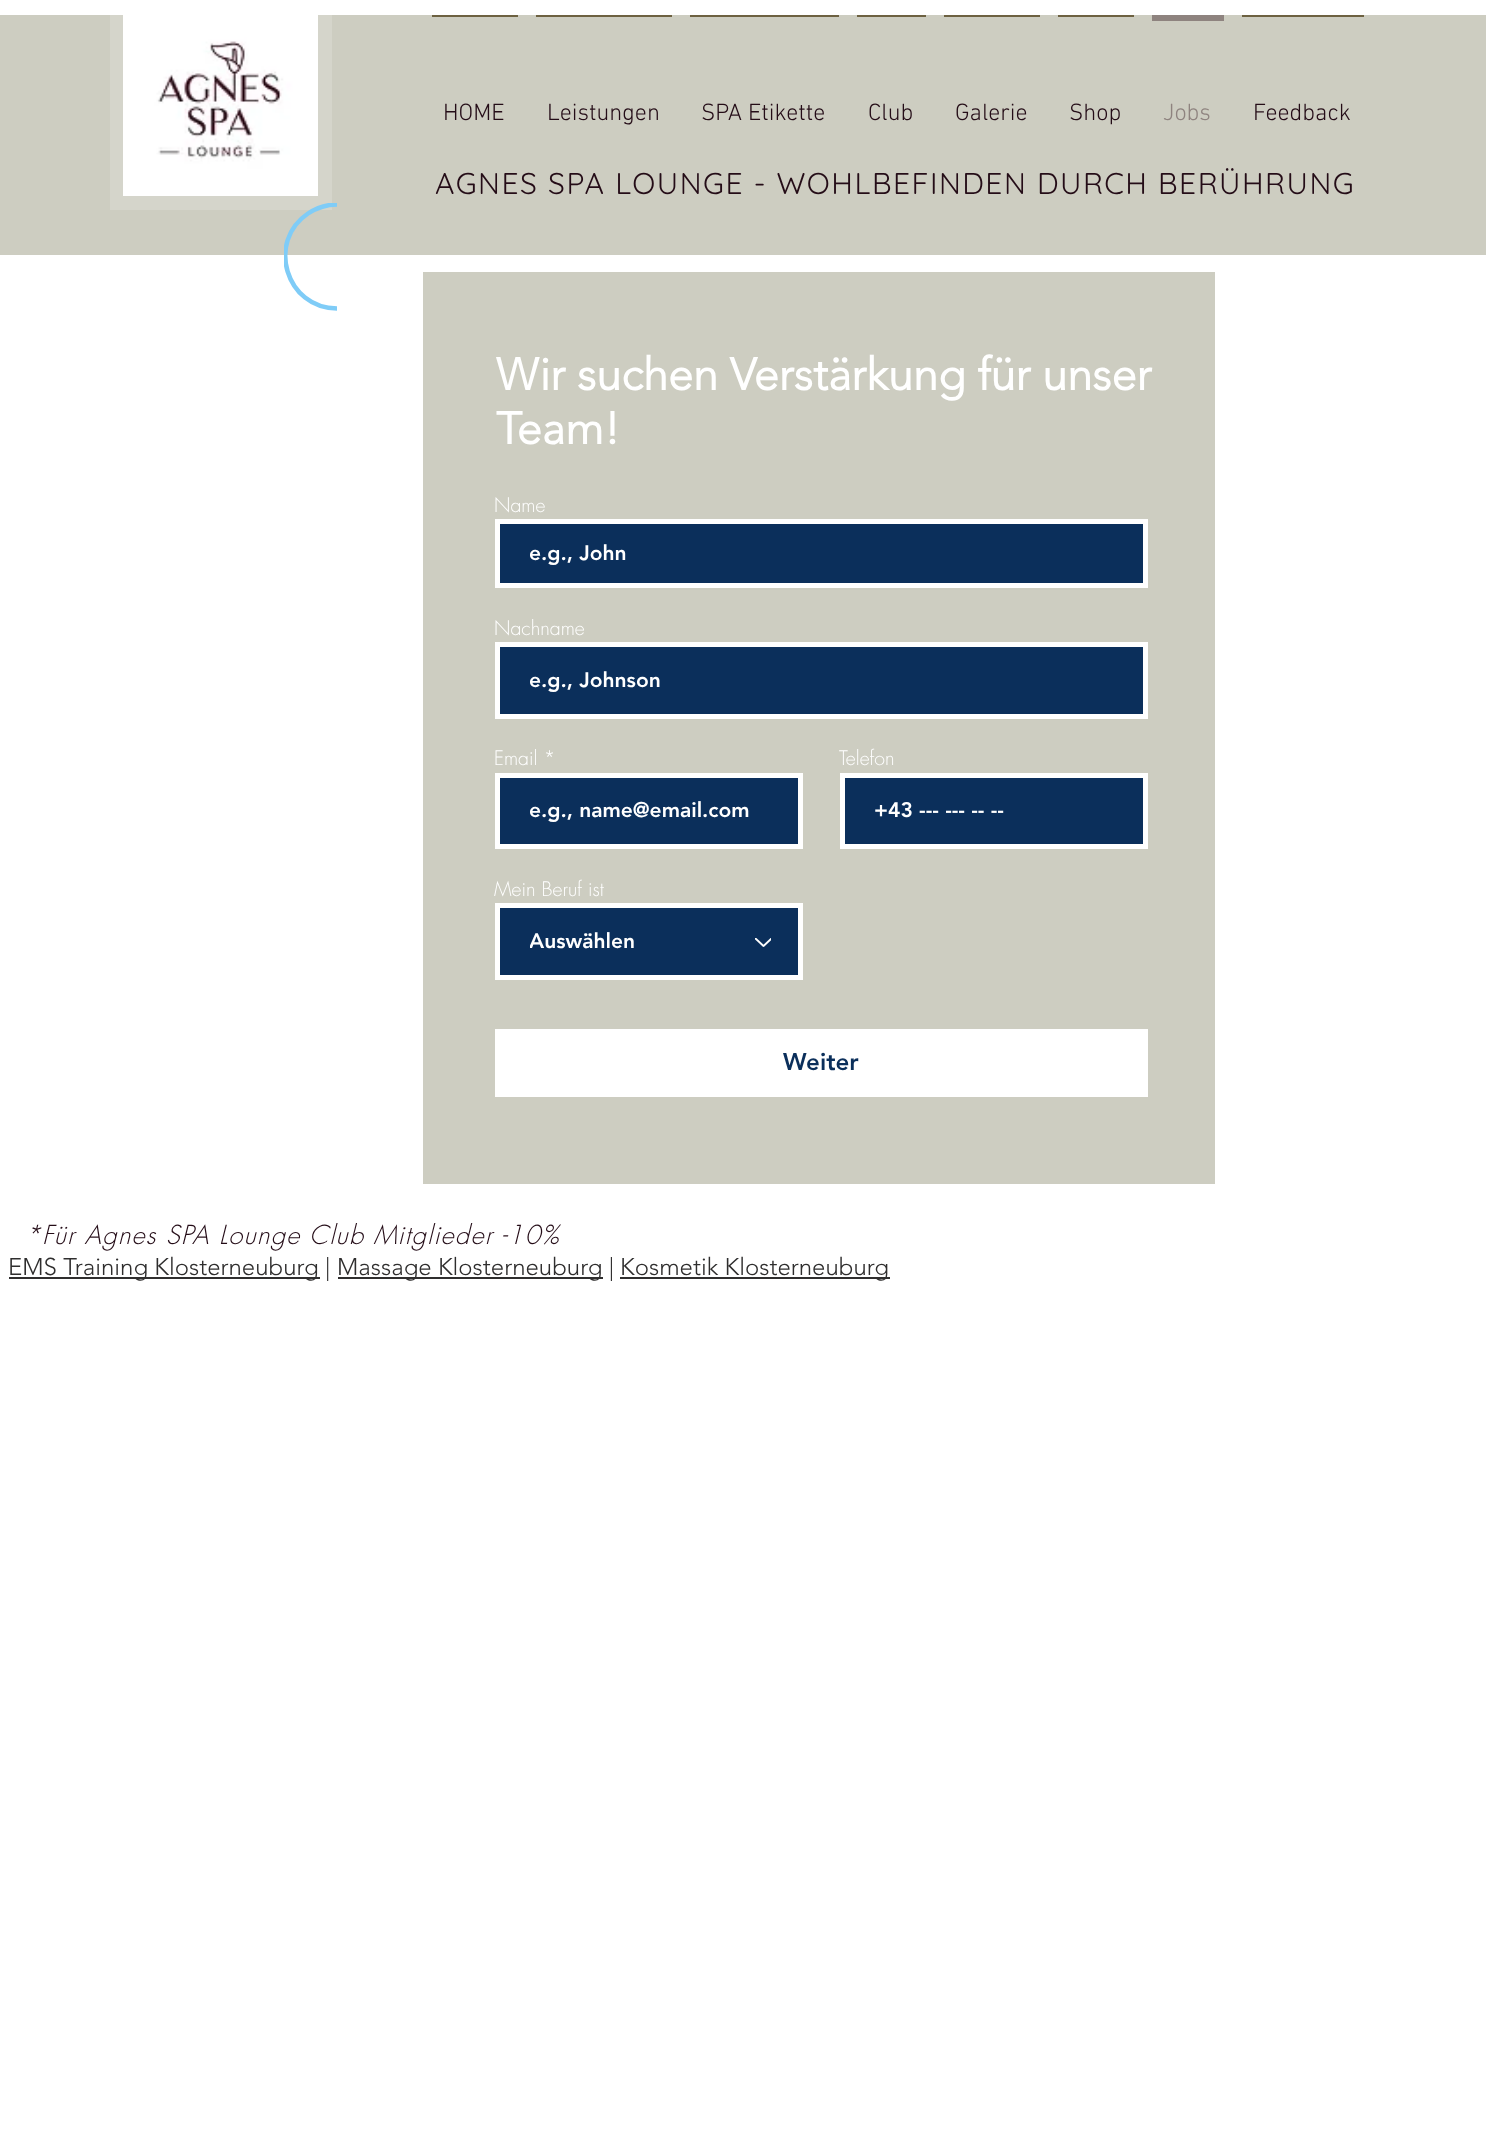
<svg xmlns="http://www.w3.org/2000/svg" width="1486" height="2136">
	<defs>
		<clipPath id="clip1"><rect x="284" y="203" width="54" height="108" /></clipPath>
		<clipPath id="clip2"><rect x="530" y="540" width="609" height="26" /></clipPath>
		<clipPath id="clip3"><rect x="530" y="668" width="609" height="25" /></clipPath>
		<clipPath id="clip4"><rect x="530" y="798" width="264" height="26" /></clipPath>
		<clipPath id="clip5"><rect x="530" y="927" width="196" height="29" /></clipPath>
	</defs>
	<rect width="100%" height="100%" fill="#FFFFFF" />
	<rect x="0" y="15" width="1486" height="240" fill="#CDCDC1" />
	<rect x="110" y="15" width="222" height="195" fill="#D5D5CB" />
	<image x="123" y="15" width="195" height="181" href="assets/img1.png" />
	<rect x="432" y="15" width="86" height="2" fill="#6D6141" />
	<text x="443" y="120" font-family="'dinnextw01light'" font-size="24" font-weight="300" fill="#240C17">HOME</text>
	<rect x="536" y="15" width="136" height="2" fill="#6D6141" />
	<text x="547" y="120" font-family="'dinnextw01light'" font-size="24" font-weight="300" fill="#240C17">Leistungen</text>
	<rect x="690" y="15" width="149" height="2" fill="#6D6141" />
	<text x="701" y="120" font-family="'dinnextw01light'" font-size="24" font-weight="300" fill="#240C17">SPA Etikette</text>
	<rect x="857" y="15" width="69" height="2" fill="#6D6141" />
	<text x="868" y="120" font-family="'dinnextw01light'" font-size="24" font-weight="300" fill="#240C17">Club</text>
	<rect x="944" y="15" width="96" height="2" fill="#6D6141" />
	<text x="955" y="120" font-family="'dinnextw01light'" font-size="24" font-weight="300" fill="#240C17">Galerie</text>
	<rect x="1058" y="15" width="76" height="2" fill="#6D6141" />
	<text x="1069" y="120" font-family="'dinnextw01light'" font-size="24" font-weight="300" fill="#240C17">Shop</text>
	<rect x="1152" y="15" width="72" height="6" fill="#8E837F" />
	<text x="1163" y="120" font-family="'dinnextw01light'" font-size="24" font-weight="300" fill="#8E837F">Jobs</text>
	<rect x="1242" y="15" width="122" height="2" fill="#6D6141" />
	<text x="1253" y="120" font-family="'dinnextw01light'" font-size="24" font-weight="300" fill="#240C17">Feedback</text>
	<text x="435" y="194" font-family="Quicksand" font-size="30" letter-spacing="1.5" fill="#240C17">AGNES SPA LOUNGE - WOHLBEFINDEN DURCH BERÜHRUNG</text>
	<g clip-path="url(#clip1)">
		<path d="M337 308.5C286 308.5 266 241.5 308 213.5C316.5 208 326.5 204.5 337 204.5" fill="none" stroke="#7FCCF7" stroke-width="4.5" />
	</g>
	<rect x="423" y="272" width="792" height="912" fill="#CDCDC1" />
	<g font-family="'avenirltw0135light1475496'" font-size="45" font-weight="700" fill="#FFFFFF">
		<text x="496" y="390">Wir suchen Verstärkung für unser</text>
		<text x="496" y="444">Team!</text>
	</g>
	<text x="494" y="512" font-family="futura" font-size="19.5" font-weight="300" fill="#FFFFFF">Name</text>
	<rect x="497.5" y="521.5" width="648" height="64" fill="#0B2F5B" stroke="#FFFFFF" stroke-width="5" />
	<g clip-path="url(#clip2)">
		<text x="529" y="560" font-family="'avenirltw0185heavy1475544'" font-size="21" font-weight="900" fill="#FFFFFF">e.g., John</text>
	</g>
	<text x="494" y="635" font-family="futura" font-size="19.5" font-weight="300" fill="#FFFFFF">Nachname</text>
	<rect x="497.5" y="644.5" width="648" height="72" fill="#0B2F5B" stroke="#FFFFFF" stroke-width="5" />
	<g clip-path="url(#clip3)">
		<text x="529" y="687" font-family="'avenirltw0185heavy1475544'" font-size="21" font-weight="900" fill="#FFFFFF">e.g., Johnson</text>
	</g>
	<text x="494" y="765" font-family="futura" font-size="19.5" font-weight="300" fill="#FFFFFF">Email *</text>
	<rect x="497.5" y="775.5" width="303" height="71" fill="#0B2F5B" stroke="#FFFFFF" stroke-width="5" />
	<g clip-path="url(#clip4)">
		<text x="529" y="817" font-family="'avenirltw0185heavy1475544'" font-size="21" font-weight="900" fill="#FFFFFF">e.g., name@email.com</text>
	</g>
	<text x="839" y="765" font-family="futura" font-size="19.5" font-weight="300" fill="#FFFFFF">Telefon</text>
	<rect x="842.5" y="775.5" width="303" height="71" fill="#0B2F5B" stroke="#FFFFFF" stroke-width="5" />
	<text x="874" y="817" font-family="'avenirltw0185heavy1475544'" font-size="21" font-weight="900" fill="#FFFFFF">+43 --- --- -- --</text>
	<text x="494" y="896" font-family="futura" font-size="19.5" font-weight="300" fill="#FFFFFF">Mein Beruf ist</text>
	<rect x="497.5" y="905.5" width="303" height="72" fill="#0B2F5B" stroke="#FFFFFF" stroke-width="5" />
	<g clip-path="url(#clip5)">
		<text x="529" y="948" font-family="'avenirltw0185heavy1475544'" font-size="21" font-weight="900" fill="#FFFFFF">Auswählen</text>
	</g>
	<image x="755" y="938" width="16" height="9" href="assets/img2.png" />
	<rect x="495" y="1029" width="653" height="68" fill="#FFFFFF" />
	<text x="783" y="1070" font-family="'avenirltw0185heavy1475544'" font-size="24" font-weight="900" fill="#0B2F5B">Weiter</text>
	<text x="25" y="1244" font-family="futura" font-size="25.5" font-weight="300" font-style="italic" letter-spacing="1.25" fill="#240C17">*Für Agnes SPA Lounge Club Mitglieder -10%</text>
	<rect x="9" y="1277" width="311" height="2" fill="#2F2E2E" />
	<text x="8" y="1275" font-family="'avenirltw0135light1475496'" font-size="24" font-weight="300" fill="#2F2E2E">EMS Training Klosterneuburg |</text>
	<rect x="338" y="1277" width="265" height="2" fill="#2F2E2E" />
	<text x="337" y="1275" font-family="'avenirltw0135light1475496'" font-size="24" font-weight="300" fill="#2F2E2E">Massage Klosterneuburg |</text>
	<rect x="620" y="1277" width="270" height="2" fill="#2F2E2E" />
	<text x="620" y="1275" font-family="'avenirltw0135light1475496'" font-size="24" font-weight="300" fill="#2F2E2E">Kosmetik Klosterneuburg</text>
</svg>
